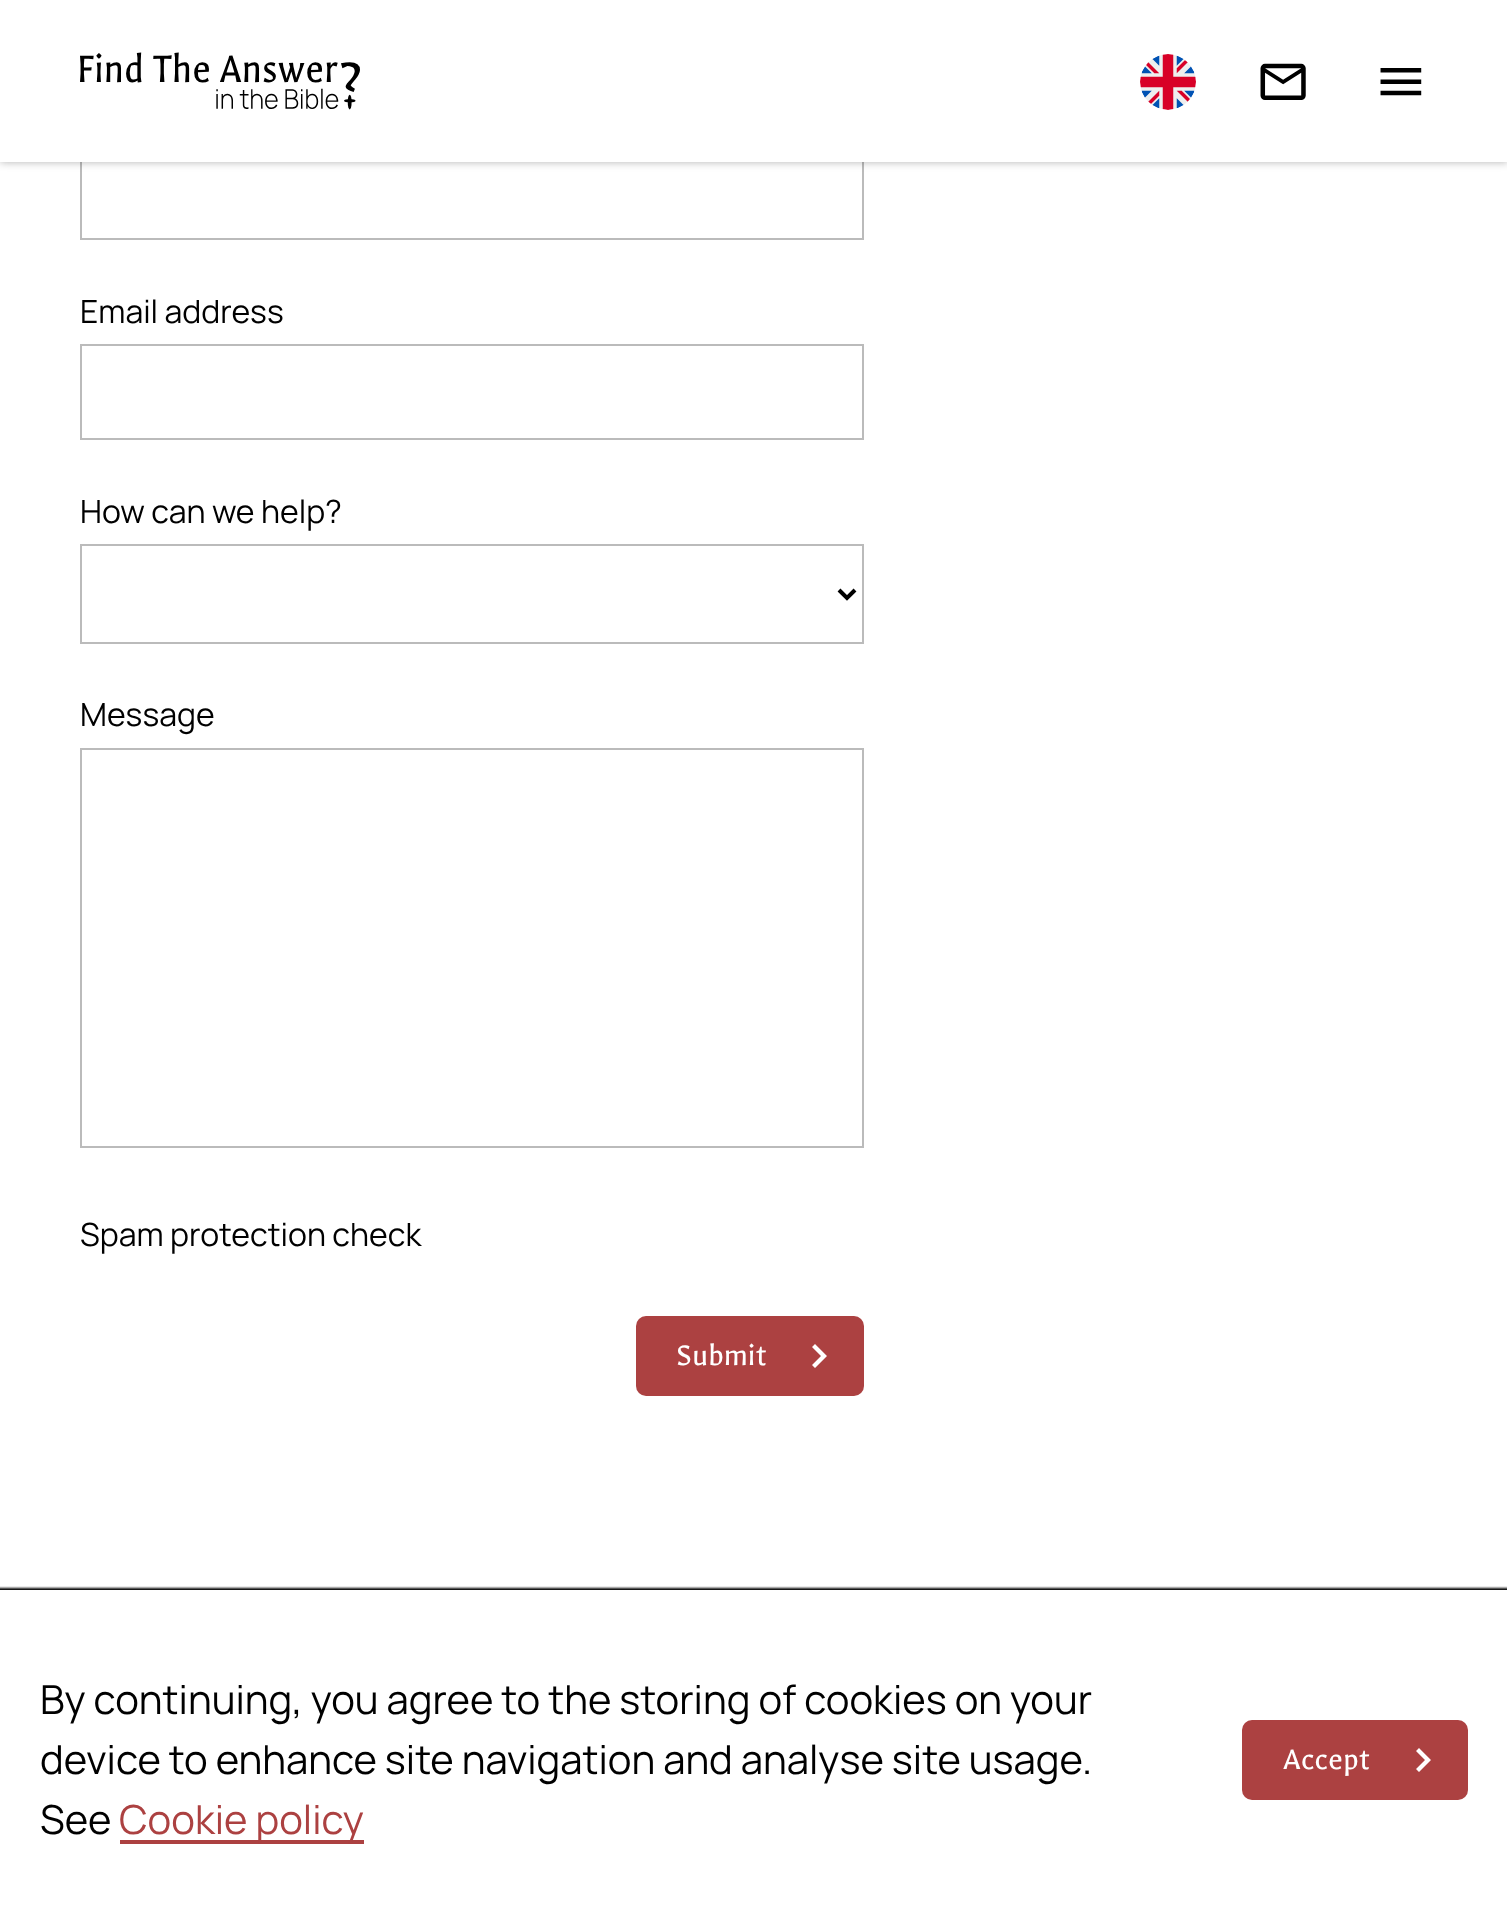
<svg xmlns="http://www.w3.org/2000/svg" width="1507" height="1930">
	<rect width="100%" height="100%" fill="#FFFFFF" />
	<rect x="81" y="145" width="782" height="94" fill="none" stroke="#BBBBBB" stroke-width="2" />
	<rect x="0" y="0" width="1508" height="162" fill="#000000" fill-opacity="0.3" filter="blur(4px)" />
	<rect x="0" y="0" width="1507" height="162" fill="#FFFFFF" />
	<image x="80" y="52" width="280" height="58" href="assets/img1.png" />
	<image x="1140" y="54" width="56" height="56" href="assets/img2.png" />
	<image x="1260" y="63" width="46" height="37" href="assets/img3.png" />
	<image x="1380" y="68" width="42" height="28" href="assets/img4.png" />
	<text x="80" y="323" font-family="Manrope" font-size="32" fill="#000000">Email address</text>
	<rect x="81" y="345" width="782" height="94" fill="none" stroke="#BBBBBB" stroke-width="2" />
	<text x="80" y="523" font-family="Manrope" font-size="32" fill="#000000">How can we help?</text>
	<rect x="81" y="545" width="782" height="98" fill="none" stroke="#BBBBBB" stroke-width="2" />
	<path d="M839 590L847 598L855 590" fill="none" stroke="#000000" stroke-width="4" />
	<text x="80" y="726" font-family="Manrope" font-size="32" fill="#000000">Message</text>
	<rect x="81" y="749" width="782" height="398" fill="none" stroke="#BBBBBB" stroke-width="2" />
	<text x="80" y="1246" font-family="Manrope" font-size="32" fill="#000000">Spam protection check</text>
	<rect x="636" y="1316" width="228" height="80" rx="10" fill="#AC4141" />
	<text x="676" y="1365" font-family="Galdeano" font-size="32" fill="#FFFFFF">Submit</text>
	<path d="M821 1356L812 1347L815 1344L827 1356L815 1368L812 1365Z" fill="#FFFFFF" />
	<rect x="-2" y="1588" width="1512" height="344" fill="#000000" filter="blur(1px)" />
	<rect x="0" y="1590" width="1507" height="340" fill="#FFFFFF" />
	<g font-family="Manrope" font-size="40" fill="#000000">
		<text x="40" y="1714">By continuing, you agree to the storing of cookies on your</text>
		<text x="40" y="1774">device to enhance site navigation and analyse site usage.</text>
		<text x="40" y="1834">See</text>
	</g>
	<rect x="120" y="1840" width="244" height="4" fill="#AC4141" />
	<text x="119" y="1834" font-family="Manrope" font-size="40" fill="#AC4141">Cookie policy</text>
	<rect x="1242" y="1720" width="226" height="80" rx="10" fill="#AC4141" />
	<text x="1283" y="1769" font-family="Galdeano" font-size="32" fill="#FFFFFF">Accept</text>
	<path d="M1425 1760L1416 1751L1419 1748L1431 1760L1419 1772L1416 1769Z" fill="#FFFFFF" />
</svg>
